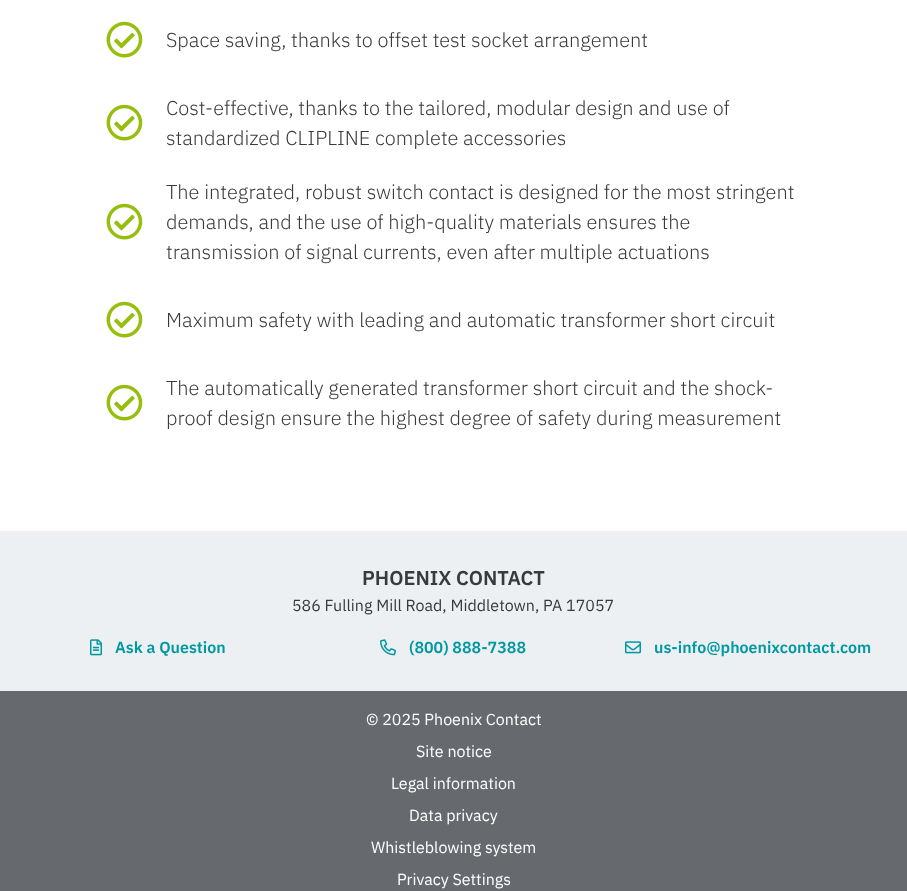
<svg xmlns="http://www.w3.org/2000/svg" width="907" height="891">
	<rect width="100%" height="100%" fill="#FFFFFF" />
	<image x="106" y="21" width="37" height="37" href="assets/img1.png" />
	<text x="166" y="47" font-family="IBM Plex Sans" font-size="20" font-weight="300" fill="#3A3A3A">Space saving, thanks to offset test socket arrangement</text>
	<image x="106" y="104" width="37" height="37" href="assets/img1.png" />
	<g font-family="IBM Plex Sans" font-size="20" font-weight="300" fill="#3A3A3A">
		<text x="166" y="115">Cost-effective, thanks to the tailored, modular design and use of</text>
		<text x="166" y="145">standardized CLIPLINE complete accessories</text>
	</g>
	<image x="106" y="203" width="37" height="37" href="assets/img1.png" />
	<g font-family="IBM Plex Sans" font-size="20" font-weight="300" fill="#3A3A3A">
		<text x="166" y="199">The integrated, robust switch contact is designed for the most stringent</text>
		<text x="166" y="229">demands, and the use of high-quality materials ensures the</text>
		<text x="166" y="259">transmission of signal currents, even after multiple actuations</text>
	</g>
	<image x="106" y="301" width="37" height="37" href="assets/img1.png" />
	<text x="166" y="327" font-family="IBM Plex Sans" font-size="20" font-weight="300" fill="#3A3A3A">Maximum safety with leading and automatic transformer short circuit</text>
	<image x="106" y="384" width="37" height="37" href="assets/img1.png" />
	<g font-family="IBM Plex Sans" font-size="20" font-weight="300" fill="#3A3A3A">
		<text x="166" y="395">The automatically generated transformer short circuit and the shock-</text>
		<text x="166" y="425">proof design ensure the highest degree of safety during measurement</text>
	</g>
	<rect x="0" y="531" width="907" height="160" fill="#EDF0F3" />
	<text x="362" y="585" font-family="IBM Plex Sans" font-size="20" font-weight="600" fill="#3A3A3A">PHOENIX CONTACT</text>
	<text x="292" y="611" font-family="IBM Plex Sans" font-size="16" fill="#3A3A3A">586 Fulling Mill Road, Middletown, PA 17057</text>
	<image x="90" y="639" width="12" height="17" href="assets/img2.png" />
	<text x="115" y="653" font-family="IBM Plex Sans" font-size="16" font-weight="600" fill="#0098A1">Ask a Question</text>
	<image x="380" y="639" width="16" height="17" href="assets/img3.png" />
	<text x="409" y="653" font-family="IBM Plex Sans" font-size="16" font-weight="600" fill="#0098A1">(800) 888-7388</text>
	<image x="625" y="641" width="16" height="13" href="assets/img4.png" />
	<text x="654" y="653" font-family="IBM Plex Sans" font-size="16" font-weight="600" fill="#0098A1">us-info@phoenixcontact.com</text>
	<rect x="0" y="691" width="907" height="200" fill="#666A6E" />
	<g font-family="IBM Plex Sans" font-size="16" fill="#FFFFFF">
		<text x="366" y="725">© 2025 Phoenix Contact</text>
		<text x="416" y="757">Site notice</text>
		<text x="391" y="789">Legal information</text>
		<text x="409" y="821">Data privacy</text>
		<text x="371" y="853">Whistleblowing system</text>
		<text x="397" y="885">Privacy Settings</text>
	</g>
</svg>
